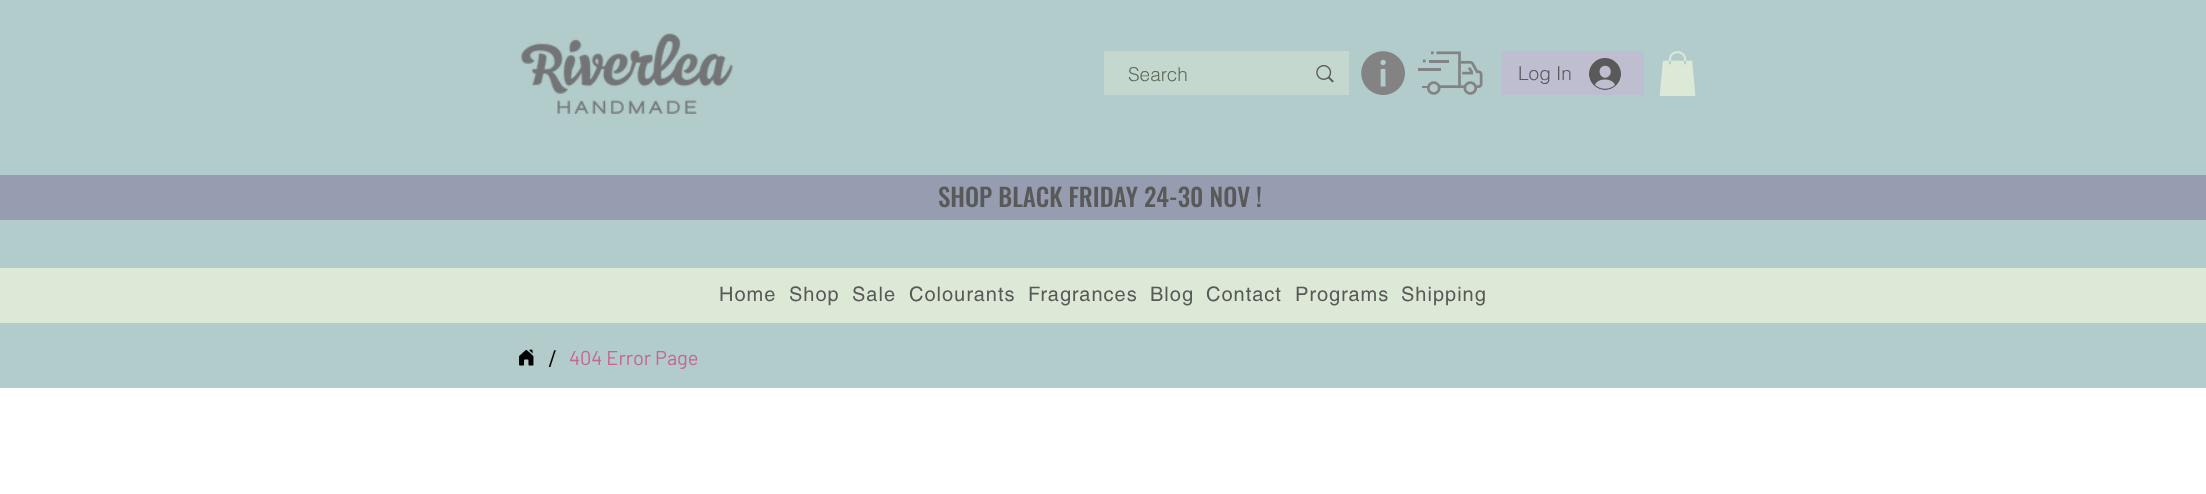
<svg xmlns="http://www.w3.org/2000/svg" width="2206" height="494">
	<rect width="100%" height="100%" fill="#FFFFFF" />
	<rect x="0" y="0" width="2206" height="388" fill="#B2CBCB" />
	<image x="521" y="33" width="212" height="81" href="assets/img1.png" />
	<rect x="1104" y="51" width="245" height="44" fill="#C4D8D0" />
	<text x="1128" y="81" font-family="helvetica" font-size="19" font-weight="300" fill="#5E6A58">Search</text>
	<image x="1316" y="65" width="18" height="18" href="assets/img2.png" />
	<image x="1361" y="51" width="44" height="44" href="assets/img3.png" />
	<image x="1418" y="51" width="65" height="44" href="assets/img4.png" />
	<rect x="1501" y="51" width="143" height="44" fill="#BFBDD0" />
	<text x="1518" y="80" font-family="helvetica" font-size="19" font-weight="300" fill="#595959">Log In</text>
	<image x="1589" y="58" width="32" height="32" href="assets/img5.png" />
	<image x="1659" y="51" width="37" height="45" href="assets/img6.png" />
	<rect x="0" y="175" width="2206" height="45" fill="#969DB1" />
	<text x="938" y="207" font-family="Oswald" font-size="25" font-weight="500" fill="#595959">SHOP BLACK FRIDAY 24-30 NOV !</text>
	<rect x="0" y="268" width="2206" height="55" fill="#DCE9D7" />
	<g font-family="helvetica" font-size="20" letter-spacing="1" fill="#595959">
		<text x="719" y="301">Home</text>
		<text x="789" y="301">Shop</text>
		<text x="852" y="301">Sale</text>
		<text x="909" y="301">Colourants</text>
		<text x="1028" y="301">Fragrances</text>
		<text x="1150" y="301">Blog</text>
		<text x="1206" y="301">Contact</text>
		<text x="1295" y="301">Programs</text>
		<text x="1401" y="301">Shipping</text>
	</g>
	<image x="519" y="349" width="15" height="17" href="assets/img7.png" />
	<text x="548" y="367" font-family="Barlow" font-size="24" fill="#000000">/</text>
	<text x="569" y="365" font-family="Barlow" font-size="20" fill="#C86595">404 Error Page</text>
</svg>
